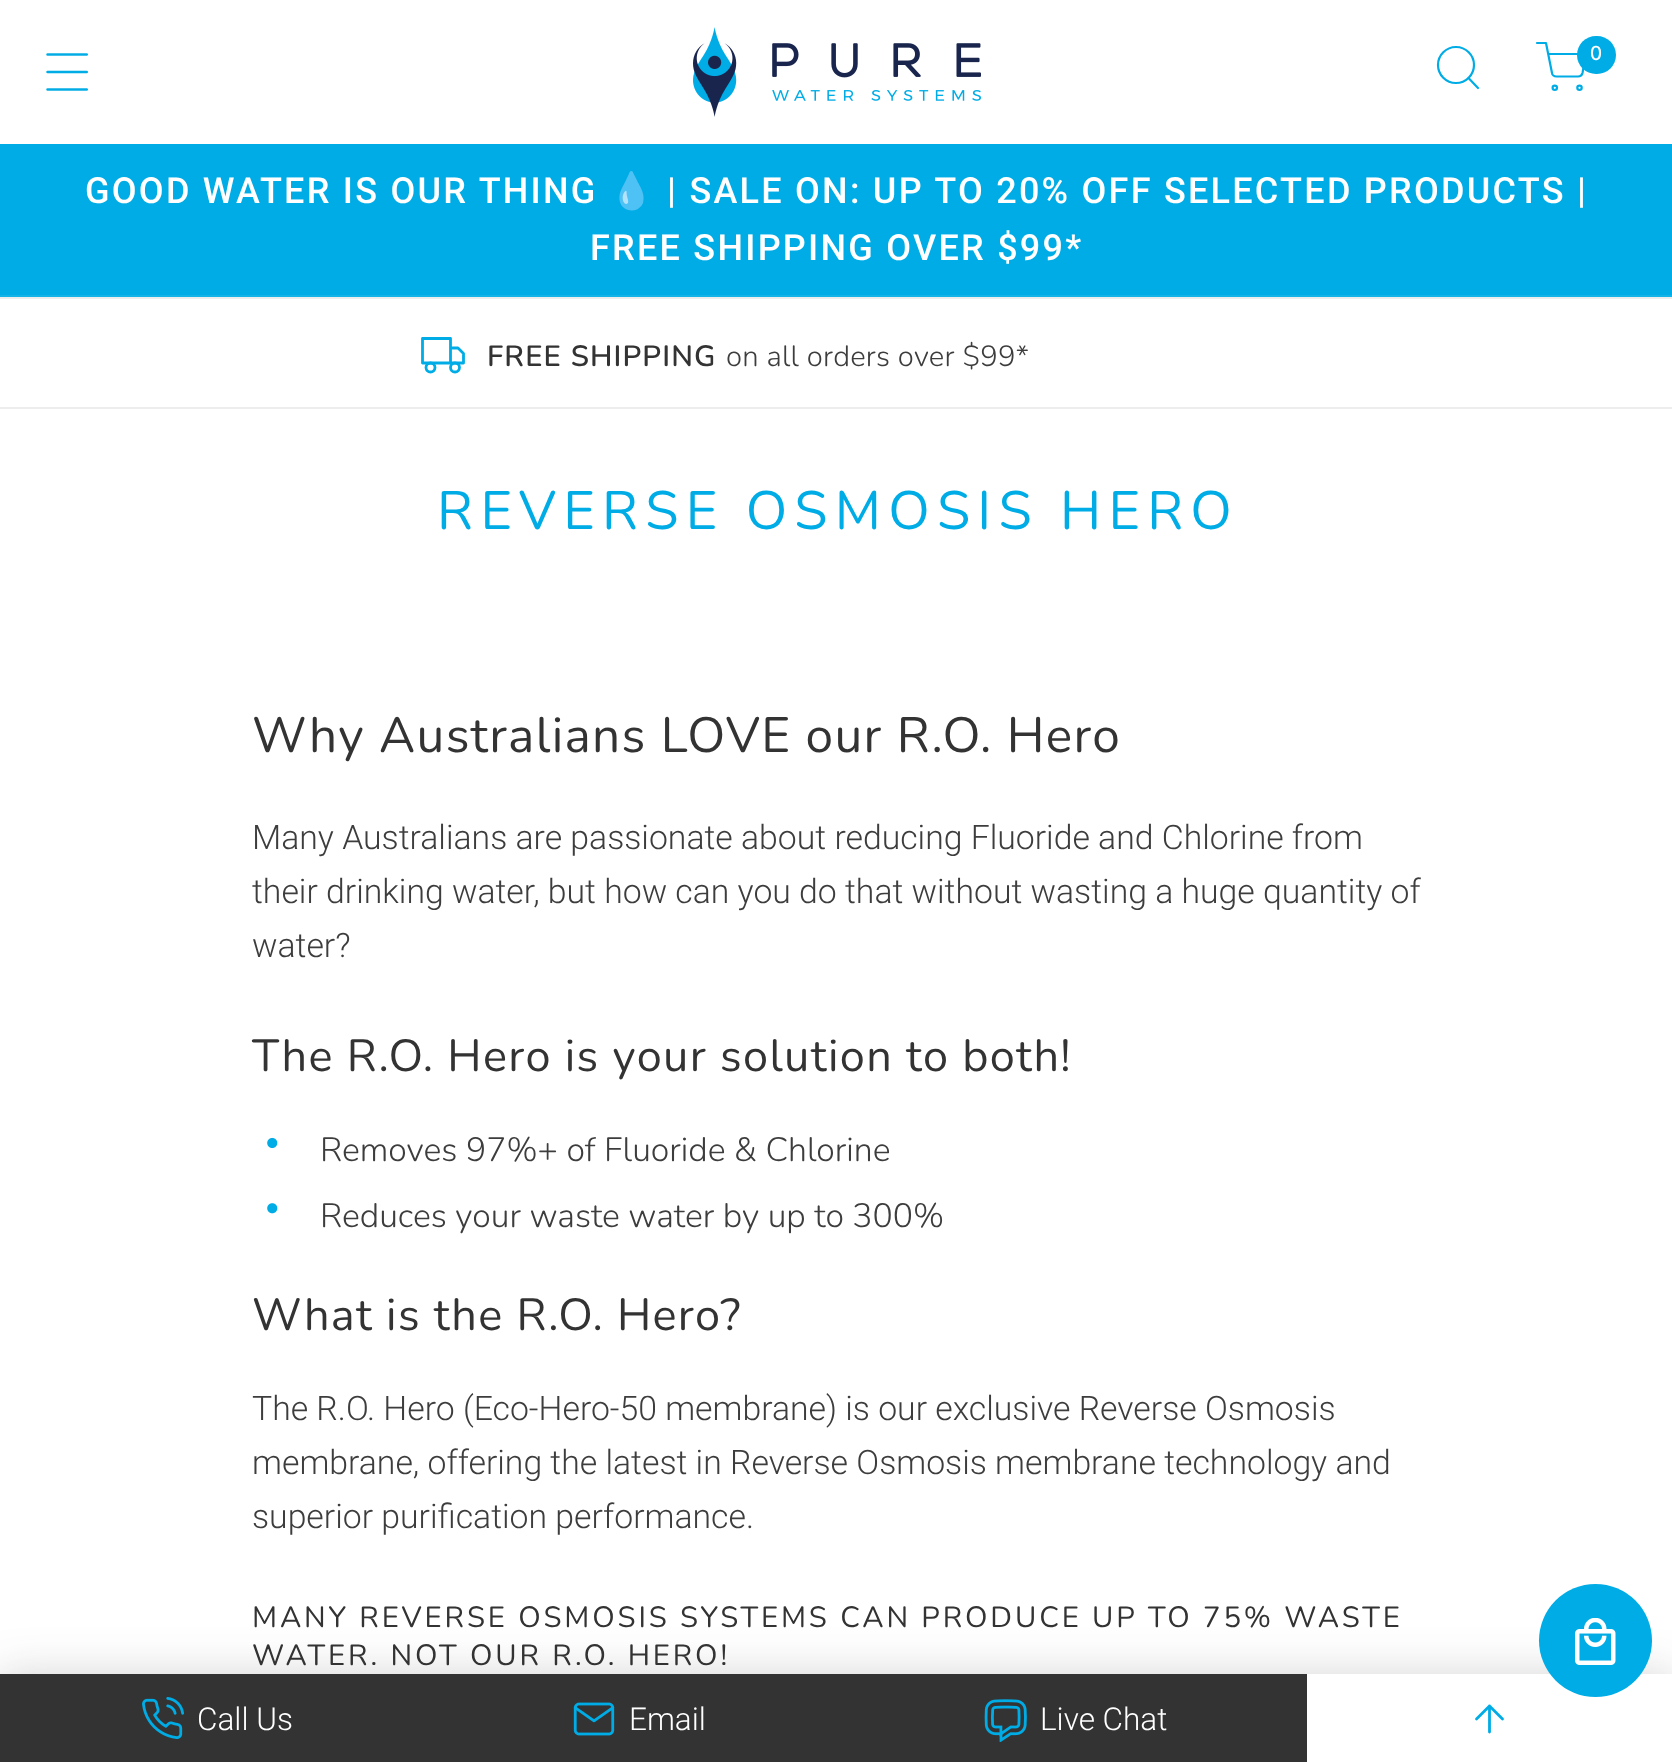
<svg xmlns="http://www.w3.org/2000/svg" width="1672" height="1762">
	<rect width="100%" height="100%" fill="#FFFFFF" />
	<image x="46" y="53" width="42" height="38" href="assets/img1.png" />
	<image x="693" y="27" width="288" height="90" href="assets/img2.png" />
	<circle cx="1456" cy="65" r="18" fill="none" stroke="#00ACE5" stroke-width="2.2" />
	<path d="M1478 88L1468.5 78" fill="none" stroke="#00ACE5" stroke-width="2.2" stroke-linecap="round" stroke-linejoin="round" />
	<path d="M1537 43H1546L1552 73C1552 75 1554 76.5 1556.5 76.5H1578C1580.5 76.5 1582 75 1582.5 73L1586 54H1548" fill="none" stroke="#00ACE5" stroke-width="2.2" stroke-linecap="round" stroke-linejoin="round" />
	<circle cx="1554.8" cy="87.8" r="2.2" fill="none" stroke="#00ACE5" stroke-width="2.2" />
	<circle cx="1579.5" cy="87.8" r="2.2" fill="none" stroke="#00ACE5" stroke-width="2.2" />
	<rect x="1577" y="36" width="39" height="38" rx="19" fill="#00ACE5" />
	<text x="1590" y="60" font-family="Nunito" font-size="20" font-weight="600" fill="#FFFFFF">0</text>
	<rect x="0" y="144" width="1672" height="151" fill="#00ACE5" />
	<rect x="0" y="295" width="1672" height="2" fill="#14B3E7" />
	<text x="85" y="203" font-family="Roboto" font-size="36" font-weight="500" letter-spacing="2.25" fill="#FFFFFF">GOOD WATER IS OUR THING</text>
	<text x="609" y="203" font-family="Noto Color Emoji" font-size="36" letter-spacing="2.25" fill="#FFFFFF">💧</text>
	<g font-family="Roboto" font-size="36" font-weight="500" letter-spacing="2.25" fill="#FFFFFF">
		<text x="667" y="203">| SALE ON: UP TO 20% OFF SELECTED PRODUCTS |</text>
		<text x="590" y="260">FREE SHIPPING OVER $99*</text>
	</g>
	<rect x="0" y="297" width="1672" height="2" fill="#EDEDED" />
	<rect x="0" y="407" width="1672" height="2" fill="#EDEDED" />
	<path d="M422.5 338.5H450.5V363H422.5ZM450.5 348H458L463.5 353.5V363H450.5Z" fill="none" stroke="#00ACE5" stroke-width="2.8" stroke-linecap="round" stroke-linejoin="round" />
	<circle cx="430.5" cy="367.5" r="4.5" fill="none" stroke="#00ACE5" stroke-width="2.8" />
	<circle cx="455" cy="367.5" r="4.5" fill="none" stroke="#00ACE5" stroke-width="2.8" />
	<text x="487" y="366" font-family="Nunito" font-size="29.25" font-weight="600" letter-spacing="1.1" fill="#333333">FREE SHIPPING</text>
	<text x="726" y="366" font-family="Nunito" font-size="29.25" font-weight="300" letter-spacing="0.25" fill="#3D3D3D">on all orders over $99*</text>
	<text x="437" y="529" font-family="Nunito" font-size="54" letter-spacing="7.25" fill="#00ACE5">REVERSE OSMOSIS HERO</text>
	<text x="252" y="752" font-family="Nunito" font-size="49.5" letter-spacing="1.35" fill="#333333">Why Australians LOVE our R.O. Hero</text>
	<g font-family="Roboto" font-size="33.75" font-weight="300" fill="#3D3D3D">
		<text x="252" y="849">Many Australians are passionate about reducing Fluoride and Chlorine from</text>
		<text x="252" y="903">their drinking water, but how can you do that without wasting a huge quantity of</text>
		<text x="252" y="957">water?</text>
	</g>
	<text x="252" y="1071" font-family="Nunito" font-size="45" letter-spacing="1.35" fill="#333333">The R.O. Hero is your solution to both!</text>
	<image x="267" y="1137" width="11" height="12" href="assets/img3.png" />
	<text x="320" y="1161" font-family="Nunito" font-size="33.75" font-weight="300" fill="#3D3D3D">Removes 97%+ of Fluoride &amp; Chlorine</text>
	<image x="267" y="1203" width="11" height="11" href="assets/img4.png" />
	<text x="320" y="1227" font-family="Nunito" font-size="33.75" font-weight="300" fill="#3D3D3D">Reduces your waste water by up to 300%</text>
	<text x="252" y="1330" font-family="Nunito" font-size="45" letter-spacing="1.35" fill="#333333">What is the R.O. Hero?</text>
	<g font-family="Roboto" font-size="33.75" font-weight="300" fill="#3D3D3D">
		<text x="252" y="1420">The R.O. Hero (Eco-Hero-50 membrane) is our exclusive Reverse Osmosis</text>
		<text x="252" y="1474">membrane, offering the latest in Reverse Osmosis membrane technology and</text>
		<text x="252" y="1528">superior purification performance.</text>
	</g>
	<g font-family="Nunito" font-size="29.25" letter-spacing="2.88" fill="#333333">
		<text x="252" y="1627">MANY REVERSE OSMOSIS SYSTEMS CAN PRODUCE UP TO 75% WASTE</text>
		<text x="252" y="1665">WATER. NOT OUR R.O. HERO!</text>
	</g>
	<rect x="0" y="1674" width="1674" height="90" fill="#333333" fill-opacity="0.2" filter="blur(22.5px)" />
	<rect x="1307" y="1674" width="365" height="88" fill="#FFFFFF" />
	<circle cx="1595.5" cy="1640.5" r="56.5" fill="#00ACE5" />
	<image x="1575" y="1618" width="41" height="47" href="assets/img5.png" />
	<rect x="0" y="1674" width="1307" height="88" fill="#333333" />
	<image x="142" y="1697" width="42" height="42" href="assets/img6.png" />
	<text x="197" y="1730" font-family="Roboto" font-size="31.5" font-weight="300" fill="#FFFFFF">Call Us</text>
	<image x="573" y="1702" width="42" height="34" href="assets/img7.png" />
	<text x="629" y="1730" font-family="Roboto" font-size="31.5" font-weight="300" fill="#FFFFFF">Email</text>
	<image x="984" y="1699" width="43" height="43" href="assets/img8.png" />
	<text x="1040" y="1730" font-family="Roboto" font-size="31.5" font-weight="300" fill="#FFFFFF">Live Chat</text>
	<path d="M1489.5 1732V1706M1476.5 1719L1489.5 1706L1502.5 1719" fill="none" stroke="#00ACE5" stroke-width="2.8" stroke-linecap="round" stroke-linejoin="round" />
</svg>
